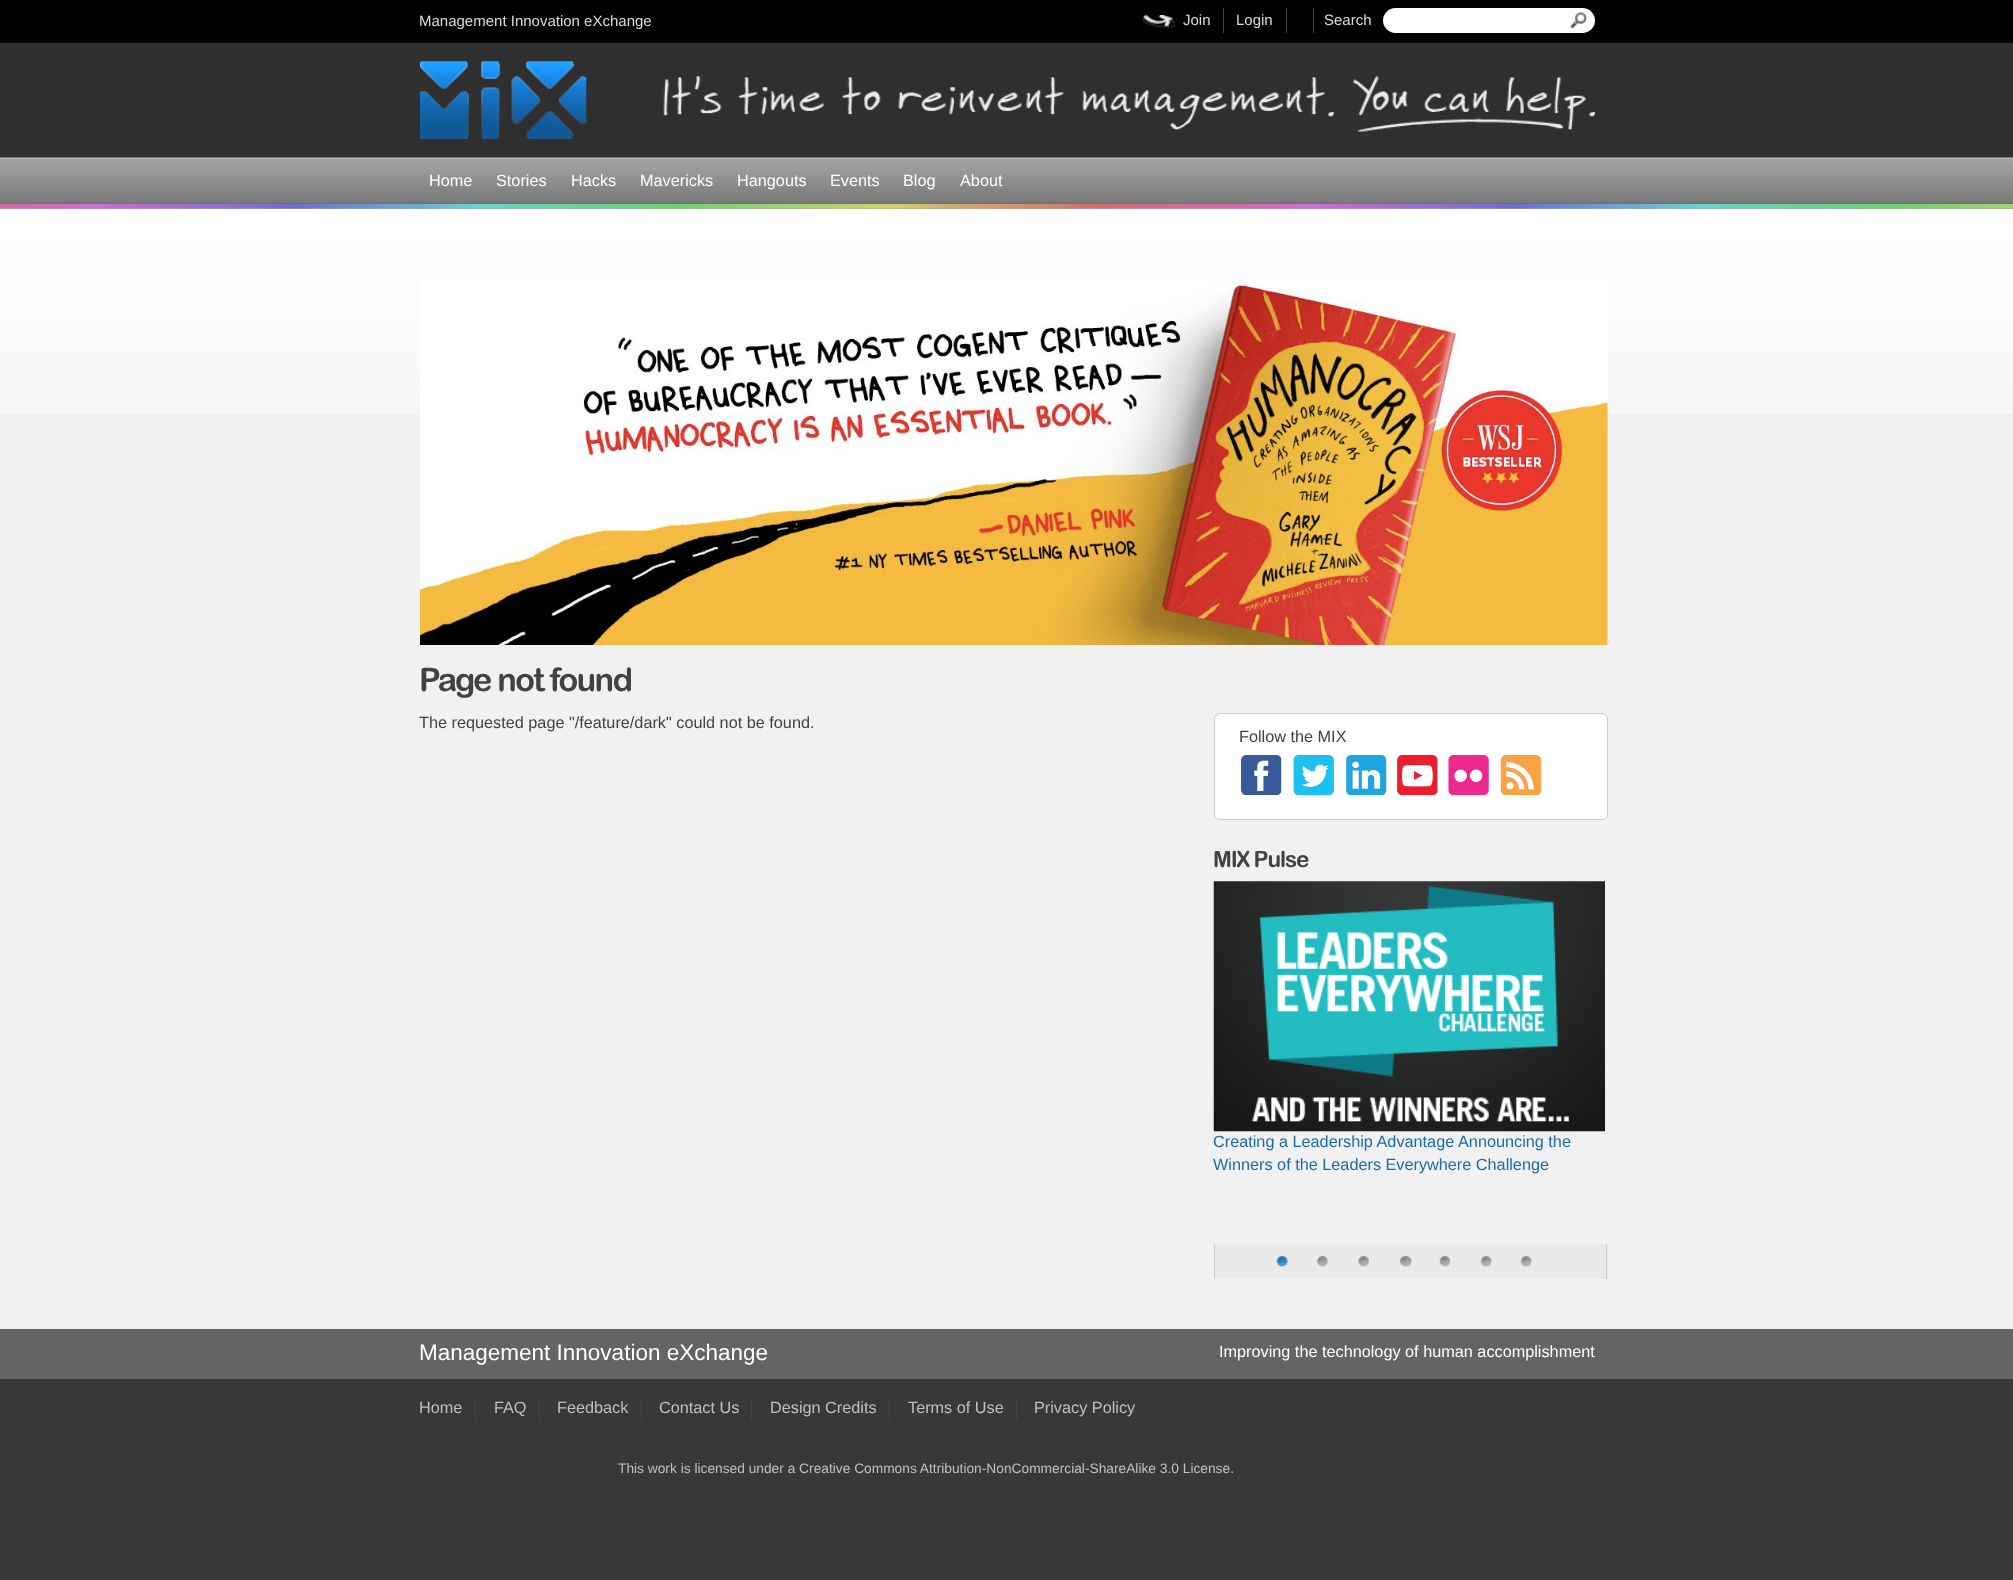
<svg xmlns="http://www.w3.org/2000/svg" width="2013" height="1580">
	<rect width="100%" height="100%" fill="#393839" />
	<image x="0" y="203" width="2013" height="6" href="assets/img1.png" />
	<rect x="0" y="0" width="2013" height="43" fill="#000000" />
	<text x="419" y="26" font-family="Liberation Sans" font-size="15" fill="#DADBDC">Management Innovation eXchange</text>
	<rect x="1313" y="8" width="1" height="25" fill="#444444" />
	<image x="1142" y="15" width="33" height="15" href="assets/img2.png" />
	<text x="1183" y="25" font-family="Liberation Sans" font-size="15" fill="#DADBDC">Join</text>
	<rect x="1223" y="8" width="1" height="25" fill="#444444" />
	<text x="1236" y="25" font-family="Liberation Sans" font-size="15" fill="#DADBDC">Login</text>
	<rect x="1286" y="8" width="1" height="25" fill="#444444" />
	<rect x="1383" y="8" width="212" height="25" rx="12.5" fill="#FFFFFF" />
	<text x="1324" y="25" font-family="Liberation Sans" font-size="15" fill="#DADBDC">Search</text>
	<image x="1570" y="12" width="17" height="17" href="assets/img3.png" />
	<rect x="0" y="43" width="2013" height="115" fill="#2F2F2F" />
	<image x="420" y="61" width="167" height="78" href="assets/img4.png" />
	<image x="663" y="76" width="932" height="57" href="assets/img5.png" />
	<image x="0" y="157" width="2013" height="47" href="assets/img6.png" />
	<g font-family="Liberation Sans" font-size="16.25" fill="#FFFFFF">
		<text x="429" y="186">Home</text>
		<text x="496" y="186">Stories</text>
		<text x="571" y="186">Hacks</text>
		<text x="640" y="186">Mavericks</text>
		<text x="737" y="186">Hangouts</text>
		<text x="830" y="186">Events</text>
		<text x="903" y="186">Blog</text>
		<text x="960" y="186">About</text>
	</g>
	<rect x="0" y="414" width="2013" height="915" fill="#F1F1F1" />
	<image x="0" y="208" width="2013" height="206" href="assets/img7.png" />
	<image x="420" y="278" width="1188" height="367" href="assets/img8.png" />
	<text x="419" y="691" font-family="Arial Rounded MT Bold" font-size="32.5" font-weight="700" letter-spacing="-1.6" fill="#424242">Page not found</text>
	<text x="419" y="728" font-family="Liberation Sans" font-size="16.25" fill="#424242">The requested page "/feature/dark" could not be found.</text>
	<rect x="1214.5" y="713.5" width="393" height="106" rx="5.5" fill="#FFFFFF" stroke="#CBCBCB" />
	<text x="1239" y="742" font-family="Liberation Sans" font-size="16.25" fill="#424242">Follow the MIX</text>
	<image x="1241" y="755" width="41" height="40" href="assets/img9.png" />
	<image x="1293" y="755" width="41" height="40" href="assets/img10.png" />
	<image x="1346" y="755" width="41" height="40" href="assets/img11.png" />
	<image x="1397" y="755" width="41" height="40" href="assets/img12.png" />
	<image x="1448" y="755" width="41" height="40" href="assets/img13.png" />
	<image x="1500" y="755" width="42" height="40" href="assets/img14.png" />
	<text x="1213" y="867" font-family="Arial Rounded MT Bold" font-size="22.5" font-weight="700" letter-spacing="-1.1" fill="#424242">MIX Pulse</text>
	<image x="1213" y="881" width="392" height="251" href="assets/img15.png" />
	<g font-family="Liberation Sans" font-size="16.25" fill="#1A6AAC">
		<text x="1213" y="1147">Creating a Leadership Advantage</text>
		<text x="1458" y="1147">Announcing the</text>
		<text x="1213" y="1170">Winners of the Leaders Everywhere Challenge</text>
	</g>
	<rect x="1215" y="1244" width="393" height="35" fill="#EAEAEA" />
	<rect x="1606" y="1244" width="1" height="35" fill="#CBCBCB" />
	<rect x="1214" y="1244" width="1" height="35" fill="#CBCBCB" />
	<image x="1276" y="1256" width="12" height="11" href="assets/img16.png" />
	<image x="1316" y="1256" width="12" height="11" href="assets/img17.png" />
	<image x="1357" y="1256" width="12" height="11" href="assets/img18.png" />
	<image x="1399" y="1256" width="13" height="11" href="assets/img19.png" />
	<image x="1439" y="1256" width="11" height="11" href="assets/img20.png" />
	<image x="1480" y="1256" width="12" height="11" href="assets/img21.png" />
	<image x="1520" y="1256" width="12" height="11" href="assets/img21.png" />
	<rect x="0" y="1329" width="2013" height="50" fill="#646464" />
	<text x="419" y="1360" font-family="Liberation Sans" font-size="22.5" fill="#FFFFFF">Management Innovation eXchange</text>
	<text x="1219" y="1357" font-family="Liberation Sans" font-size="16.25" fill="#FFFFFF">Improving the technology of human accomplishment</text>
	<rect x="475" y="1398" width="1" height="22" fill="#444444" />
	<text x="419" y="1413" font-family="Liberation Sans" font-size="16.25" fill="#C0BFC0">Home</text>
	<rect x="539" y="1398" width="1" height="22" fill="#444444" />
	<text x="494" y="1413" font-family="Liberation Sans" font-size="16.25" fill="#C0BFC0">FAQ</text>
	<rect x="641" y="1398" width="1" height="22" fill="#444444" />
	<text x="557" y="1413" font-family="Liberation Sans" font-size="16.25" fill="#C0BFC0">Feedback</text>
	<rect x="751" y="1398" width="1" height="22" fill="#444444" />
	<text x="659" y="1413" font-family="Liberation Sans" font-size="16.25" fill="#C0BFC0">Contact Us</text>
	<rect x="889" y="1398" width="1" height="22" fill="#444444" />
	<text x="770" y="1413" font-family="Liberation Sans" font-size="16.25" fill="#C0BFC0">Design Credits</text>
	<rect x="1016" y="1398" width="1" height="22" fill="#444444" />
	<g font-family="Liberation Sans" font-size="16.25" fill="#C0BFC0">
		<text x="908" y="1413">Terms of Use</text>
		<text x="1034" y="1413">Privacy Policy</text>
	</g>
	<text x="618" y="1473" font-family="Liberation Sans" font-size="13.75" fill="#C0BFC0">This work is licensed under a Creative Commons Attribution-NonCommercial-ShareAlike 3.0 License.</text>
</svg>
